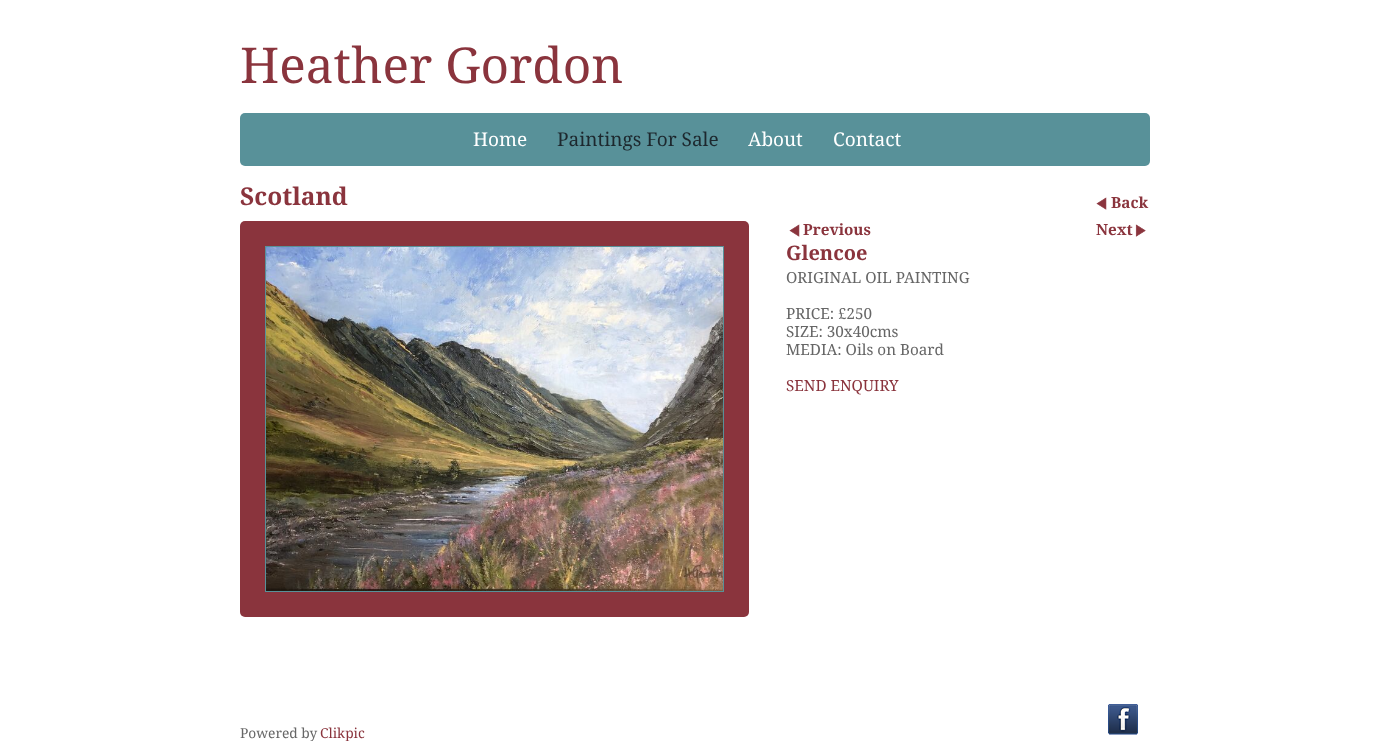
<svg xmlns="http://www.w3.org/2000/svg" width="1389" height="741">
	<rect width="100%" height="100%" fill="#FFFFFF" />
	<text x="240" y="83" font-family="Droid Serif" font-size="49.5" fill="#8A343D">Heather Gordon</text>
	<rect x="240" y="113" width="910" height="53" rx="5" fill="#589199" />
	<text x="473" y="146" font-family="Droid Serif" font-size="19" fill="#FFFFFF">Home</text>
	<text x="557" y="146" font-family="Droid Serif" font-size="19" fill="#1D282E">Paintings For Sale</text>
	<g font-family="Droid Serif" font-size="19" fill="#FFFFFF">
		<text x="748" y="146">About</text>
		<text x="833" y="146">Contact</text>
	</g>
	<text x="240" y="205" font-family="Droid Serif" font-size="24.5" font-weight="700" fill="#8A343D">Scotland</text>
	<image x="1096" y="197" width="11" height="13" href="assets/img1.png" />
	<text x="1111" y="208" font-family="Droid Serif" font-size="15.25" font-weight="700" fill="#8A343D">Back</text>
	<rect x="240" y="221" width="509" height="396" rx="5" fill="#8A343D" />
	<rect x="265.5" y="246.5" width="458" height="345" fill="none" stroke="#589199" />
	<image x="266" y="247" width="457" height="344" href="assets/img2.png" />
	<image x="789" y="224" width="11" height="13" href="assets/img1.png" />
	<g font-family="Droid Serif" font-size="15.25" font-weight="700" fill="#8A343D">
		<text x="803" y="235">Previous</text>
		<text x="1096" y="235">Next</text>
	</g>
	<image x="1135" y="224" width="11" height="13" href="assets/img3.png" />
	<text x="786" y="260" font-family="Droid Serif" font-size="20" font-weight="700" fill="#8A343D">Glencoe</text>
	<g font-family="Droid Serif" font-size="15.25" fill="#666666">
		<text x="786" y="283">ORIGINAL OIL PAINTING</text>
		<text x="786" y="319">PRICE: £250</text>
		<text x="786" y="337">SIZE: 30x40cms</text>
		<text x="786" y="355">MEDIA: Oils on Board</text>
	</g>
	<text x="786" y="391" font-family="Droid Serif" font-size="15.25" fill="#8A343D">SEND ENQUIRY</text>
	<text x="240" y="738" font-family="Droid Serif" font-size="13.75" fill="#666666">Powered by</text>
	<text x="320" y="738" font-family="Droid Serif" font-size="13.75" fill="#8A343D">Clikpic</text>
	<image x="1108" y="704" width="30" height="31" href="assets/img4.png" />
</svg>
